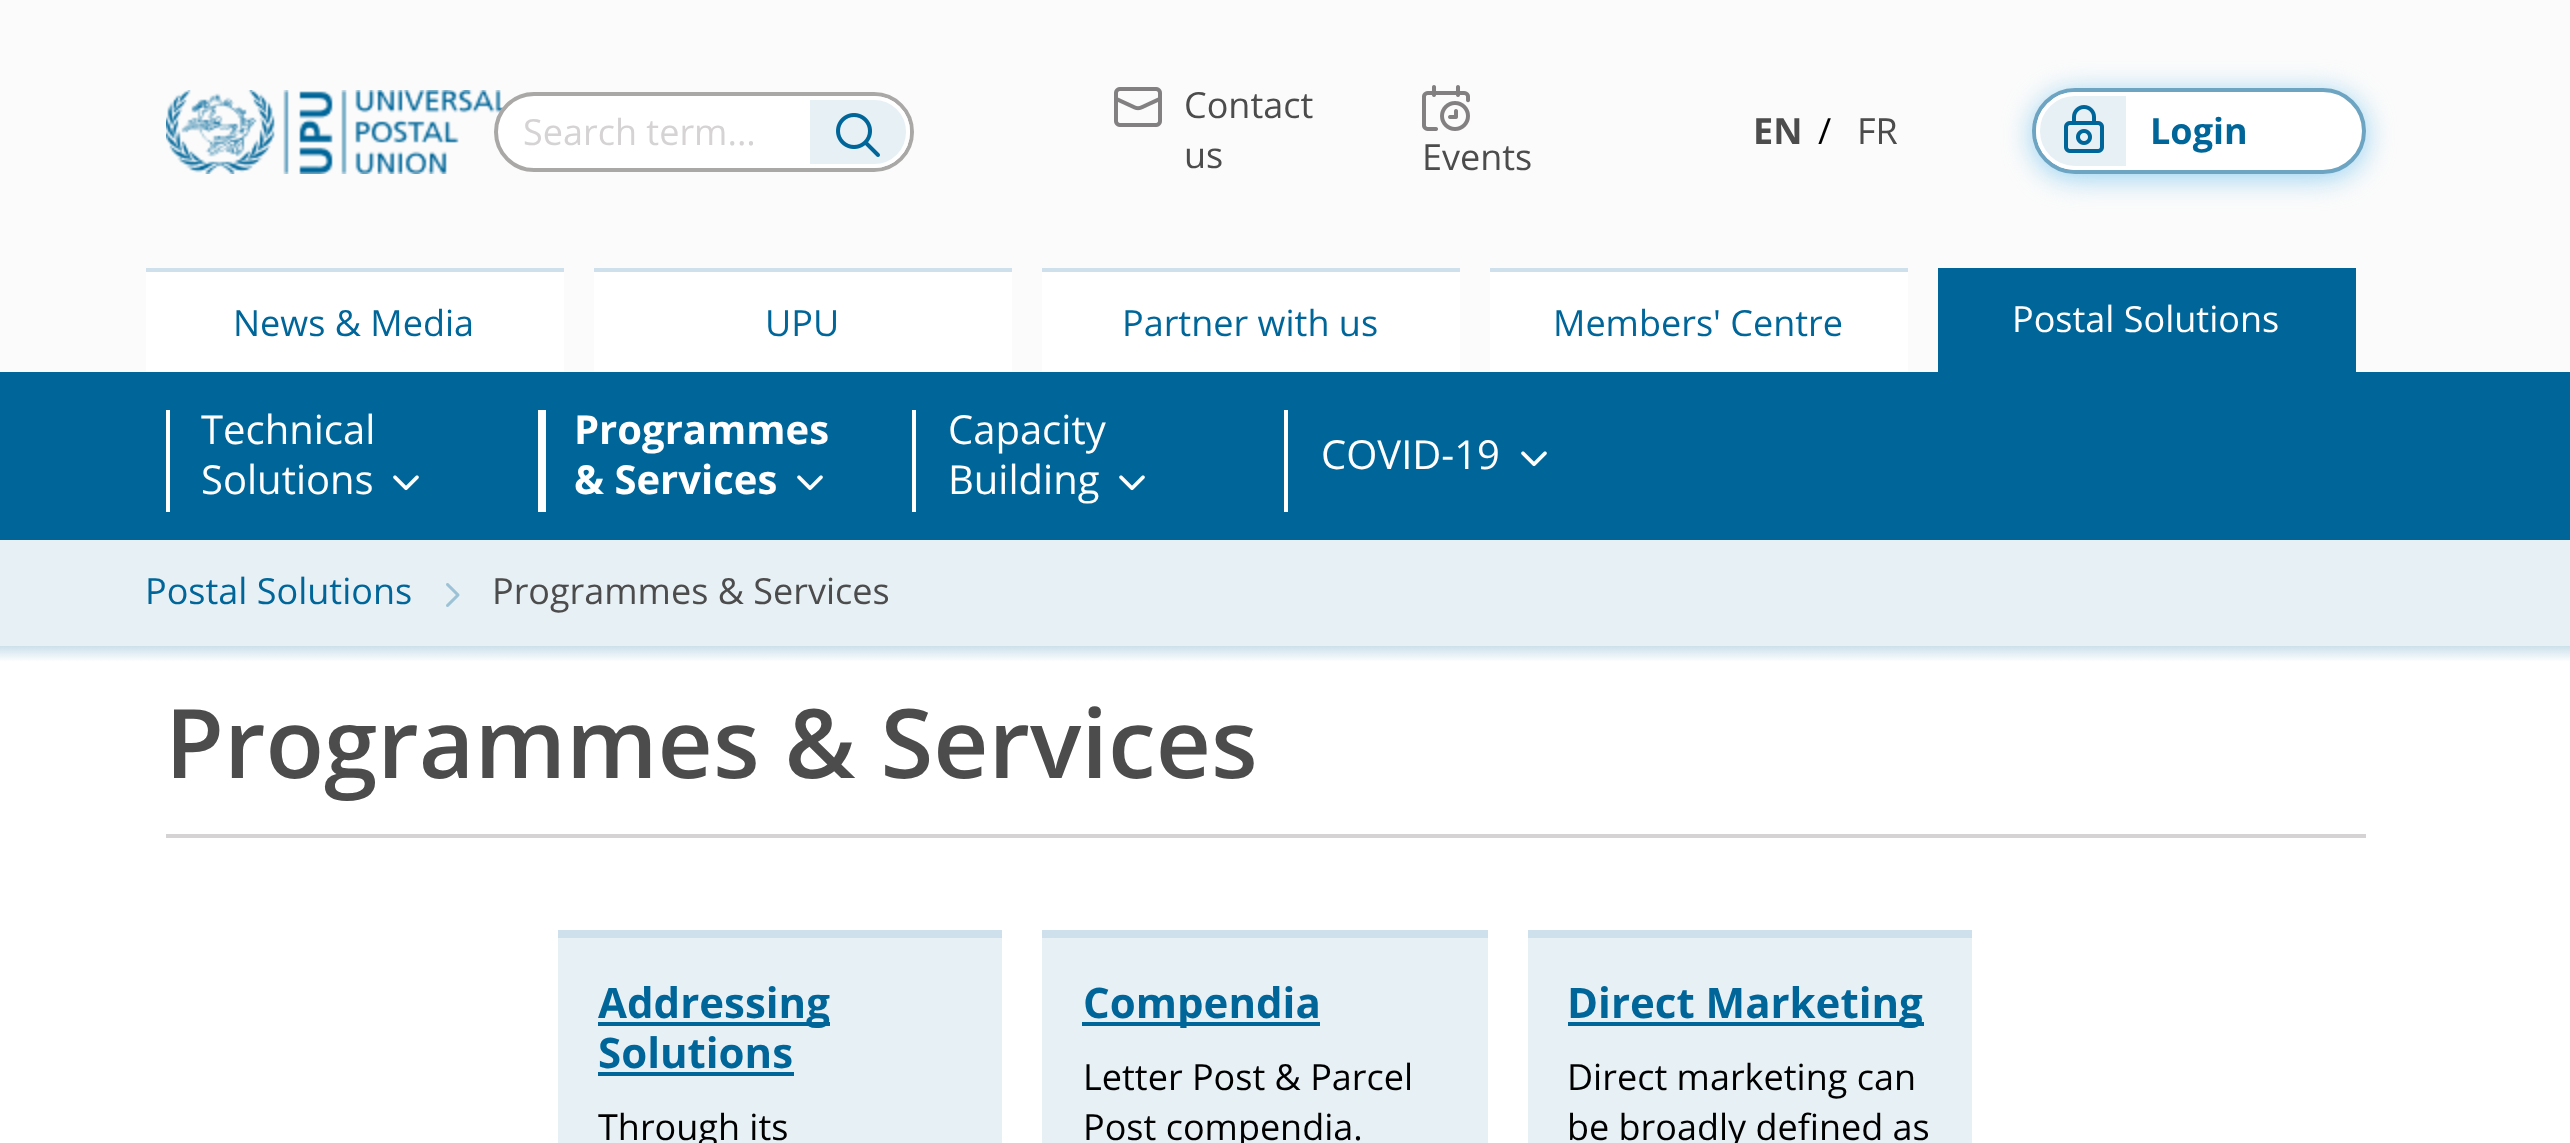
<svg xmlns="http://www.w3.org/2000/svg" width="2570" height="1143">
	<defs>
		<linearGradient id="g1" gradientUnits="userSpaceOnUse" x1="1285" y1="646" x2="1285" y2="662"><stop offset="0" stop-color="#CCE0EB" /><stop offset="1" stop-color="#FFFFFF" /></linearGradient>
	</defs>
	<rect width="100%" height="100%" fill="#FFFFFF" />
	<rect x="0" y="0" width="2570" height="372" fill="#FBFBFB" />
	<image x="166" y="90" width="337" height="84" href="assets/img1.png" />
	<rect x="496" y="94" width="416" height="76" rx="38" fill="#FFFFFF" stroke="#A9A8A7" stroke-width="4" />
	<text x="523" y="145" font-family="Open Sans" font-size="36" fill="#D5D3D3">Search term...</text>
	<path d="M808 98H874C893 98 908 113 908 132C908 151 893 166 874 166H808Z" fill="#E7F0F5" stroke="#FFFFFF" stroke-width="4" />
	<image x="836" y="113" width="44" height="44" href="assets/img2.png" />
	<image x="1114" y="87" width="48" height="40" href="assets/img3.png" />
	<g font-family="Open Sans" font-size="36" fill="#4D4C4D">
		<text x="1184" y="118">Contact</text>
		<text x="1184" y="168">us</text>
	</g>
	<image x="1422" y="85" width="48" height="46" href="assets/img4.png" />
	<text x="1422" y="170" font-family="Open Sans" font-size="36" fill="#4D4C4D">Events</text>
	<text x="1753" y="144" font-family="Open Sans" font-size="36" font-weight="700" fill="#4D4C4D">EN</text>
	<text x="1818" y="144" font-family="Open Sans" font-size="36" fill="#000000">/</text>
	<text x="1857" y="144" font-family="Open Sans" font-size="36" fill="#4D4C4D">FR</text>
	<rect x="2032" y="92" width="334" height="86" rx="43" fill="#95D1F1" filter="blur(14px)" />
	<rect x="2034" y="90" width="330" height="82" rx="41" fill="#FFFFFF" stroke="#6CA4C2" stroke-width="4" />
	<path d="M2075 94H2128V168H2075C2054.5 168 2038 151.5 2038 131C2038 110.5 2054.5 94 2075 94Z" fill="#E7F0F5" stroke="#FFFFFF" stroke-width="4" />
	<image x="2064" y="105" width="40" height="48" href="assets/img5.png" />
	<text x="2150" y="144" font-family="Open Sans" font-size="36" font-weight="700" fill="#006699">Login</text>
	<rect x="146" y="272" width="418" height="100" fill="#FFFFFF" />
	<rect x="146" y="268" width="418" height="4" fill="#CDE0EC" />
	<text x="233" y="336" font-family="Open Sans" font-size="36" fill="#006699">News &amp; Media</text>
	<rect x="594" y="272" width="418" height="100" fill="#FFFFFF" />
	<rect x="594" y="268" width="418" height="4" fill="#CDE0EC" />
	<text x="765" y="336" font-family="Open Sans" font-size="36" fill="#006699">UPU</text>
	<rect x="1042" y="272" width="418" height="100" fill="#FFFFFF" />
	<rect x="1042" y="268" width="418" height="4" fill="#CDE0EC" />
	<text x="1122" y="336" font-family="Open Sans" font-size="36" fill="#006699">Partner with us</text>
	<rect x="1490" y="272" width="418" height="100" fill="#FFFFFF" />
	<rect x="1490" y="268" width="418" height="4" fill="#CDE0EC" />
	<text x="1553" y="336" font-family="Open Sans" font-size="36" fill="#006699">Members' Centre</text>
	<rect x="1938" y="268" width="418" height="104" fill="#006699" />
	<text x="2012" y="332" font-family="Open Sans" font-size="36" fill="#FFFFFF">Postal Solutions</text>
	<rect x="0" y="372" width="2570" height="168" fill="#006699" />
	<rect x="166" y="410" width="4" height="102" fill="#FFFFFF" />
	<g font-family="Open Sans" font-size="40" fill="#FFFFFF">
		<text x="201" y="444">Technical</text>
		<text x="201" y="494">Solutions</text>
	</g>
	<image x="393" y="475" width="26" height="16" href="assets/img6.png" />
	<rect x="538" y="410" width="8" height="102" fill="#FFFFFF" />
	<g font-family="Open Sans" font-size="40" font-weight="700" fill="#FFFFFF">
		<text x="574" y="444">Programmes</text>
		<text x="574" y="494">&amp; Services</text>
	</g>
	<image x="797" y="475" width="26" height="16" href="assets/img6.png" />
	<rect x="912" y="410" width="4" height="102" fill="#FFFFFF" />
	<g font-family="Open Sans" font-size="40" fill="#FFFFFF">
		<text x="948" y="444">Capacity</text>
		<text x="948" y="494">Building</text>
	</g>
	<image x="1119" y="475" width="26" height="16" href="assets/img6.png" />
	<rect x="1284" y="410" width="4" height="102" fill="#FFFFFF" />
	<text x="1321" y="469" font-family="Open Sans" font-size="40" fill="#FFFFFF">COVID-19</text>
	<image x="1521" y="451" width="26" height="16" href="assets/img6.png" />
	<rect x="0" y="540" width="2570" height="106" fill="#E7F0F5" />
	<text x="145" y="604" font-family="Open Sans" font-size="36" fill="#006699">Postal Solutions</text>
	<image x="446" y="583" width="14" height="24" href="assets/img7.png" />
	<text x="492" y="604" font-family="Open Sans" font-size="36" fill="#4D4C4D">Programmes &amp; Services</text>
	<rect x="0" y="646" width="2570" height="15" fill="url(#g1)" />
	<rect x="166" y="834" width="2200" height="4" fill="#D5D3D3" />
	<text x="165" y="778" font-family="Open Sans" font-size="96" font-weight="600" fill="#4D4C4D">Programmes &amp; Services</text>
	<rect x="558" y="938" width="444" height="205" fill="#E7F0F5" />
	<rect x="558" y="930" width="444" height="8" fill="#CDE0EC" />
	<rect x="598" y="1022" width="232" height="4" fill="#006699" />
	<g font-family="Open Sans" font-size="42" font-weight="700" fill="#006699">
		<text x="598" y="1018">Addressing</text>
		<text x="598" y="1068">Solutions</text>
	</g>
	<rect x="598" y="1072" width="196" height="4" fill="#006699" />
	<text x="598" y="1140" font-family="Open Sans" font-size="36" fill="#000000">Through its</text>
	<rect x="1042" y="938" width="446" height="205" fill="#E7F0F5" />
	<rect x="1042" y="930" width="446" height="8" fill="#CDE0EC" />
	<rect x="1082" y="1022" width="238" height="4" fill="#006699" />
	<text x="1083" y="1018" font-family="Open Sans" font-size="42" font-weight="700" fill="#006699">Compendia</text>
	<g font-family="Open Sans" font-size="36" fill="#000000">
		<text x="1083" y="1090">Letter Post &amp; Parcel</text>
		<text x="1083" y="1140">Post compendia.</text>
	</g>
	<rect x="1528" y="938" width="444" height="205" fill="#E7F0F5" />
	<rect x="1528" y="930" width="444" height="8" fill="#CDE0EC" />
	<rect x="1568" y="1022" width="356" height="4" fill="#006699" />
	<text x="1567" y="1018" font-family="Open Sans" font-size="42" font-weight="700" fill="#006699">Direct Marketing</text>
	<g font-family="Open Sans" font-size="36" fill="#000000">
		<text x="1567" y="1090">Direct marketing can</text>
		<text x="1567" y="1140">be broadly defined as</text>
	</g>
</svg>
